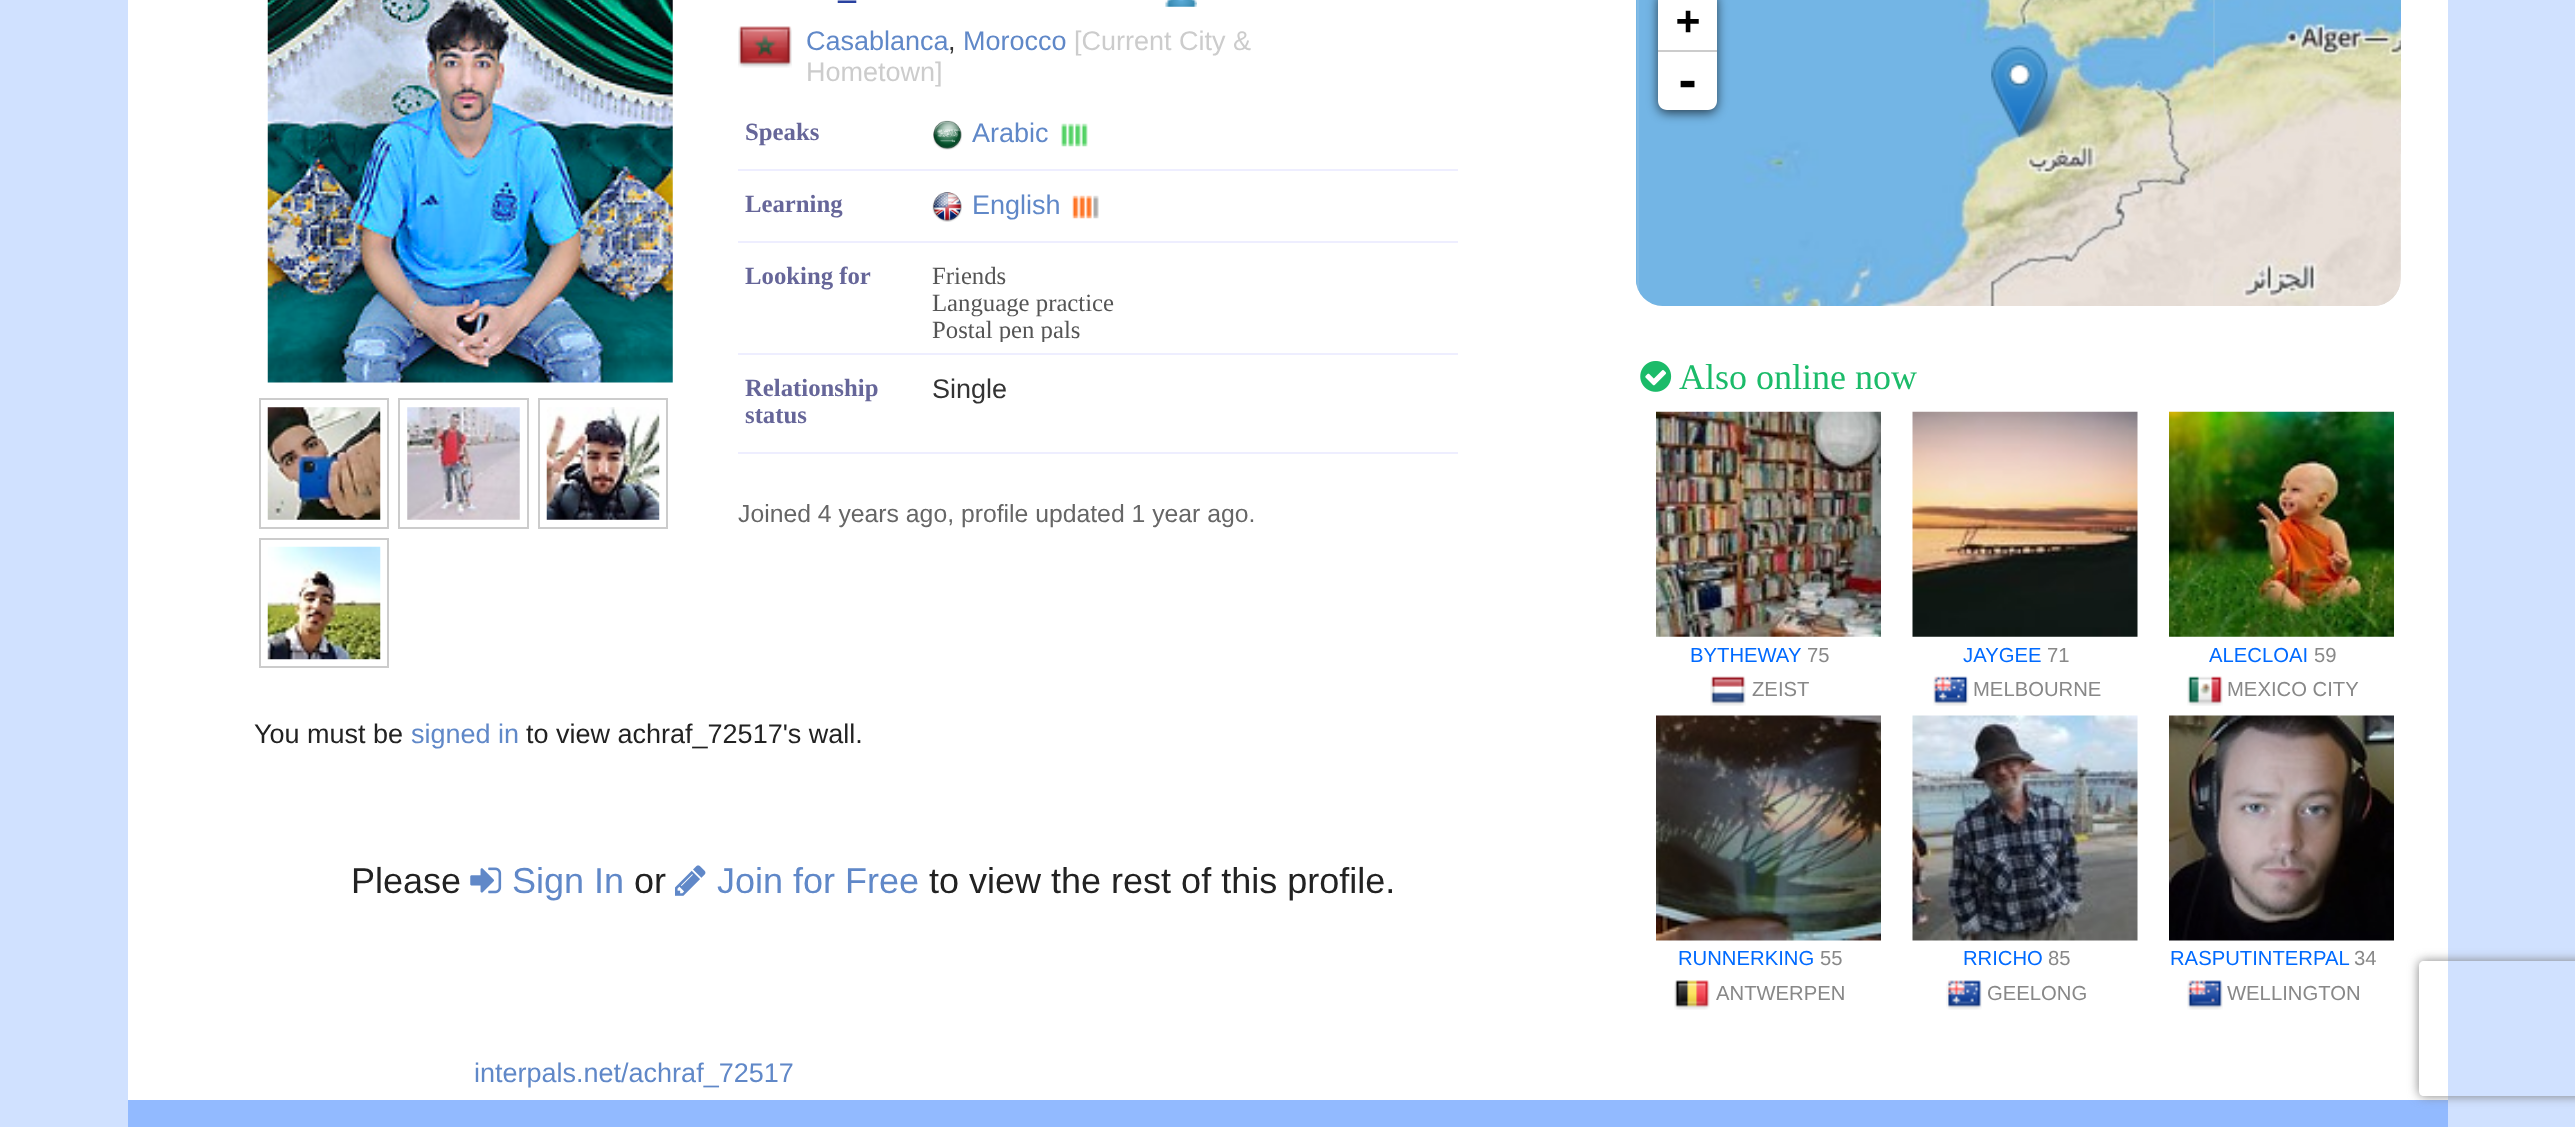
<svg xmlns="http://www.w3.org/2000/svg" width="2575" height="1127">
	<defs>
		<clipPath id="clip1"><rect x="932" y="254" width="526" height="88" /></clipPath>
		<clipPath id="clip2"><path d="M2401 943H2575V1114H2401ZM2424 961H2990C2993 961 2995 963 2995 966V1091C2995 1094 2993 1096 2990 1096H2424C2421 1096 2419 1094 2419 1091V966C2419 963 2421 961 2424 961Z" clip-rule="evenodd" /></clipPath>
	</defs>
	<rect width="100%" height="100%" fill="#D0E1FF" />
	<rect x="128" y="0" width="2320" height="1100" fill="#FFFFFF" />
	<image x="267" y="0" width="406" height="383" href="assets/img1.png" />
	<rect x="260" y="399" width="128" height="129" fill="none" stroke="#CCCCCC" stroke-width="2" />
	<image x="267" y="407" width="114" height="113" href="assets/img2.png" />
	<rect x="399" y="399" width="129" height="129" fill="none" stroke="#CCCCCC" stroke-width="2" />
	<image x="407" y="407" width="113" height="113" href="assets/img3.png" />
	<rect x="539" y="399" width="128" height="129" fill="none" stroke="#CCCCCC" stroke-width="2" />
	<image x="546" y="407" width="114" height="113" href="assets/img4.png" />
	<rect x="260" y="539" width="128" height="128" fill="none" stroke="#CCCCCC" stroke-width="2" />
	<image x="267" y="546" width="114" height="114" href="assets/img5.png" />
	<text x="838" y="-2" font-family="Liberation Serif" font-size="36" font-weight="700" fill="#2942A0">_</text>
	<image x="1165" y="0" width="32" height="7" href="assets/img6.png" />
	<image x="738" y="26" width="54" height="42" href="assets/img7.png" />
	<text x="806" y="50" font-family="Liberation Sans" font-size="27" fill="#6088C8">Casablanca</text>
	<text x="948" y="50" font-family="Liberation Sans" font-size="27" fill="#333333">,</text>
	<text x="963" y="50" font-family="Liberation Sans" font-size="27" fill="#6088C8">Morocco</text>
	<g font-family="Liberation Sans" font-size="27" fill="#CCCCCC">
		<text x="1074" y="50">[Current City &amp;</text>
		<text x="806" y="81">Hometown]</text>
	</g>
	<rect x="738" y="169" width="720" height="2" fill="#EEEEFF" />
	<text x="745" y="140" font-family="Liberation Serif" font-size="24.75" font-weight="700" fill="#666699">Speaks</text>
	<image x="933" y="120" width="29" height="30" href="assets/img8.png" />
	<text x="972" y="142" font-family="Liberation Sans" font-size="27" fill="#6088C8">Arabic</text>
	<image x="1061" y="123" width="27" height="24" href="assets/img9.png" />
	<rect x="738" y="241" width="720" height="2" fill="#EEEEFF" />
	<text x="745" y="212" font-family="Liberation Serif" font-size="24.75" font-weight="700" fill="#666699">Learning</text>
	<image x="932" y="192" width="30" height="30" href="assets/img10.png" />
	<text x="972" y="214" font-family="Liberation Sans" font-size="27" fill="#6088C8">English</text>
	<image x="1072" y="195" width="27" height="24" href="assets/img11.png" />
	<rect x="738" y="353" width="720" height="2" fill="#EEEEFF" />
	<text x="745" y="284" font-family="Liberation Serif" font-size="24.75" font-weight="700" fill="#666699">Looking for</text>
	<g font-family="Liberation Serif" font-size="24.75" fill="#555555">
		<text x="932" y="284">Friends</text>
		<text x="932" y="311">Language practice</text>
	</g>
	<g clip-path="url(#clip1)">
		<text x="932" y="338" font-family="Liberation Serif" font-size="24.75" fill="#555555">Postal pen pals</text>
	</g>
	<rect x="738" y="452" width="720" height="2" fill="#EEEEFF" />
	<g font-family="Liberation Serif" font-size="24.75" font-weight="700" fill="#666699">
		<text x="745" y="396">Relationship</text>
		<text x="745" y="423">status</text>
	</g>
	<text x="932" y="398" font-family="Liberation Sans" font-size="27" fill="#333333">Single</text>
	<text x="738" y="522" font-family="Liberation Sans" font-size="24.75" fill="#666666">Joined 4 years ago, profile updated 1 year ago.</text>
	<text x="254" y="743" font-family="Liberation Sans" font-size="27" fill="#222222">You must be</text>
	<text x="411" y="743" font-family="Liberation Sans" font-size="27" fill="#6088C8">signed in</text>
	<text x="526" y="743" font-family="Liberation Sans" font-size="27" fill="#222222">to view achraf_72517's wall.</text>
	<text x="351" y="893" font-family="Liberation Sans" font-size="36" fill="#222222">Please</text>
	<image x="470" y="867" width="32" height="27" href="assets/img12.png" />
	<text x="512" y="893" font-family="Liberation Sans" font-size="36" fill="#6088C8">Sign In</text>
	<text x="634" y="893" font-family="Liberation Sans" font-size="36" fill="#222222">or</text>
	<image x="675" y="865" width="31" height="31" href="assets/img13.png" />
	<text x="717" y="893" font-family="Liberation Sans" font-size="36" fill="#6088C8">Join for Free</text>
	<text x="929" y="893" font-family="Liberation Sans" font-size="36" fill="#222222">to view the rest of this profile.</text>
	<text x="474" y="1082" font-family="Liberation Sans" font-size="27" fill="#6088C8">interpals.net/achraf_72517</text>
	<image x="1636" y="0" width="765" height="306" href="assets/img14.png" />
	<image x="1637" y="0" width="578" height="306" href="assets/img16.png" />
	<image x="1636" y="0" width="3" height="291" href="assets/img15.png" />
	<image x="2213" y="0" width="188" height="306" href="assets/img17.png" />
	<image x="2011" y="73" width="68" height="65" href="assets/img19.png" />
	<image x="1991" y="45" width="57" height="93" href="assets/img18.png" />
	<rect x="1658" y="-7" width="59" height="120" rx="9" fill="#000000" fill-opacity="0.65" filter="blur(5.5px)" />
	<rect x="1658" y="0" width="59" height="50" fill="#FFFFFF" />
	<rect x="1658" y="50" width="59" height="2" fill="#CCCCCC" />
	<text x="1676" y="34" font-family="DejaVu Sans Mono" font-size="40" font-weight="700" fill="#000000">+</text>
	<path d="M1658 52H1717V101C1717 106 1713 110 1708 110H1667C1662 110 1658 106 1658 101Z" fill="#FFFFFF" />
	<text x="1674" y="97" font-family="DejaVu Sans Mono" font-size="45" font-weight="700" fill="#000000">-</text>
	<image x="1640" y="361" width="32" height="31" href="assets/img20.png" />
	<text x="1679" y="389" font-family="Liberation Serif" font-size="36" fill="#1BBB69">Also online now</text>
	<image x="1656" y="411" width="225" height="226" href="assets/img21.png" />
	<text x="1690" y="662" font-family="Liberation Sans" font-size="20.25" fill="#006AFF">BYTHEWAY</text>
	<text x="1807" y="662" font-family="Liberation Sans" font-size="20.25" fill="#888888">75</text>
	<image x="1710" y="676" width="36" height="30" href="assets/img22.png" />
	<text x="1752" y="696" font-family="Liberation Sans" font-size="20.25" fill="#888888">ZEIST</text>
	<image x="1912" y="411" width="226" height="226" href="assets/img23.png" />
	<text x="1963" y="662" font-family="Liberation Sans" font-size="20.25" fill="#006AFF">JAYGEE</text>
	<text x="2047" y="662" font-family="Liberation Sans" font-size="20.25" fill="#888888">71</text>
	<image x="1933" y="676" width="36" height="30" href="assets/img24.png" />
	<text x="1973" y="696" font-family="Liberation Sans" font-size="20.25" fill="#888888">MELBOURNE</text>
	<image x="2169" y="411" width="225" height="226" href="assets/img25.png" />
	<text x="2209" y="662" font-family="Liberation Sans" font-size="20.25" fill="#006AFF">ALECLOAI</text>
	<text x="2314" y="662" font-family="Liberation Sans" font-size="20.25" fill="#888888">59</text>
	<image x="2187" y="676" width="36" height="30" href="assets/img26.png" />
	<text x="2227" y="696" font-family="Liberation Sans" font-size="20.25" fill="#888888">MEXICO CITY</text>
	<image x="1656" y="715" width="225" height="226" href="assets/img27.png" />
	<text x="1678" y="965" font-family="Liberation Sans" font-size="20.25" fill="#006AFF">RUNNERKING</text>
	<text x="1820" y="965" font-family="Liberation Sans" font-size="20.25" fill="#888888">55</text>
	<image x="1674" y="980" width="36" height="30" href="assets/img28.png" />
	<text x="1716" y="1000" font-family="Liberation Sans" font-size="20.25" fill="#888888">ANTWERPEN</text>
	<image x="1912" y="715" width="226" height="226" href="assets/img29.png" />
	<text x="1963" y="965" font-family="Liberation Sans" font-size="20.25" fill="#006AFF">RRICHO</text>
	<text x="2048" y="965" font-family="Liberation Sans" font-size="20.25" fill="#888888">85</text>
	<image x="1946" y="980" width="36" height="30" href="assets/img30.png" />
	<text x="1987" y="1000" font-family="Liberation Sans" font-size="20.25" fill="#888888">GEELONG</text>
	<image x="2169" y="715" width="225" height="226" href="assets/img31.png" />
	<text x="2170" y="965" font-family="Liberation Sans" font-size="20.25" fill="#006AFF">RASPUTINTERPAL</text>
	<text x="2354" y="965" font-family="Liberation Sans" font-size="20.25" fill="#888888">34</text>
	<image x="2187" y="980" width="36" height="30" href="assets/img32.png" />
	<text x="2227" y="1000" font-family="Liberation Sans" font-size="20.25" fill="#888888">WELLINGTON</text>
	<rect x="128" y="1100" width="2320" height="27" fill="#92BAFF" />
	<g clip-path="url(#clip2)">
		<rect x="2419" y="961" width="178" height="135" rx="5" fill="#808080" filter="blur(5.5px)" />
	</g>
</svg>
